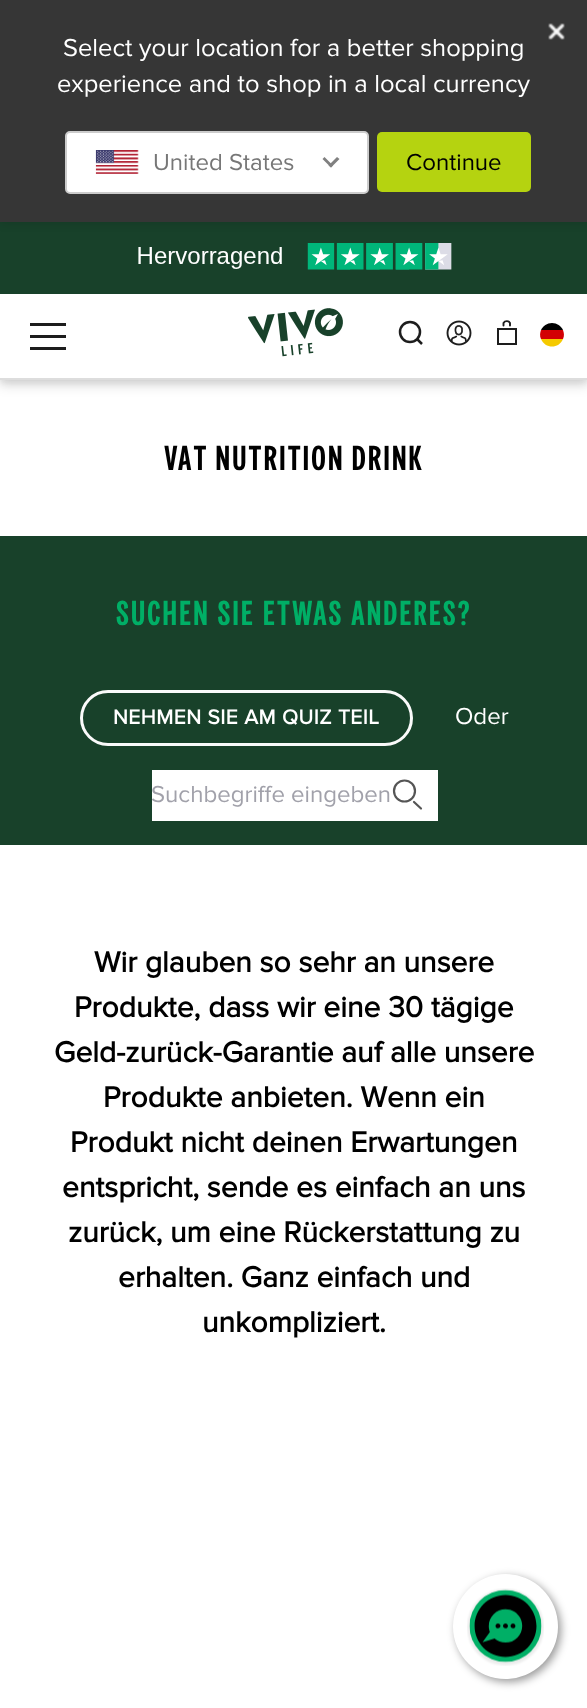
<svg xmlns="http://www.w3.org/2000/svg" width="587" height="1708">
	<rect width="100%" height="100%" fill="#FFFFFF" />
	<rect x="0" y="225" width="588" height="158" fill="#000000" fill-opacity="0.08" filter="blur(3px)" />
	<rect x="0" y="228" width="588" height="158" fill="#000000" fill-opacity="0.12" filter="blur(6px)" />
	<rect x="0" y="222" width="587" height="72" fill="#18412A" />
	<rect x="0" y="2" width="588" height="222" fill="#000000" fill-opacity="0.1" filter="blur(4px)" />
	<rect x="0" y="0" width="587" height="222" fill="#363636" />
	<image x="548" y="23" width="17" height="17" href="assets/img1.png" />
	<g font-family="Proxima Nova" font-size="25.5" fill="#FFFFFF">
		<text x="63" y="56">Select your location for a better shopping</text>
		<text x="57" y="92">experience and to shop in a local currency</text>
	</g>
	<rect x="66" y="132" width="302" height="61" rx="4" fill="#FFFFFF" stroke="#CCCCCC" stroke-width="2" />
	<image x="95" y="150" width="44" height="24" href="assets/img2.png" />
	<text x="153" y="170" font-family="Proxima Nova" font-size="24" fill="#777777">United States</text>
	<path d="M337 157L339.5 159L331 167.5L328.5 165.5Z" fill="#808080" />
	<path d="M324.5 157L333 165.5L331 167.5L322.5 159Z" fill="#808080" />
	<rect x="377" y="132" width="154" height="60" rx="5" fill="#B5D310" />
	<text x="406" y="170" font-family="Proxima Nova" font-size="24" fill="#000000">Continue</text>
	<rect x="0" y="294" width="587" height="84" fill="#FFFFFF" />
	<image x="138" y="243" width="314" height="27" href="assets/img3.png" />
	<rect x="0" y="378" width="587" height="2" fill="#DDDDDD" />
	<rect x="30" y="323" width="36" height="3" fill="#1D1D1D" />
	<rect x="30" y="335" width="36" height="3" fill="#1D1D1D" />
	<rect x="30" y="347" width="36" height="3" fill="#1D1D1D" />
	<image x="248" y="308" width="95" height="49" href="assets/img4.png" />
	<circle cx="410" cy="332" r="10" fill="none" stroke="#1D1D1D" stroke-width="2.5" />
	<path d="M422 344L417 339" fill="none" stroke="#1D1D1D" stroke-width="2.5" />
	<image x="446" y="320" width="26" height="26" href="assets/img5.png" />
	<path d="M510 325.5V323C508.5 320.5 505 320.5 503.5 323V325.5" fill="none" stroke="#1D1D1D" stroke-width="1.9" stroke-linecap="round" stroke-linejoin="round" />
	<rect x="498" y="329" width="18" height="15" fill="none" stroke="#1D1D1D" stroke-width="2" />
	<path d="M552 323C547 323 543 326 541 330H563C561 326 557 323 552 323Z" fill="#000000" />
	<path d="M541 339C539.5 336 540 333 541 330H563C564 333 564.5 336 563 339Z" fill="#D30004" />
	<path d="M563 339C559 349 545 349 541 339Z" fill="#F5CA00" />
	<text x="164" y="470" word-spacing="-1" font-family="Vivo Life" font-size="34.5" letter-spacing="1.75" fill="#000000">VAT NUTRITION DRINK</text>
	<rect x="0" y="536" width="587" height="309" fill="#18412A" />
	<text x="116" y="625" font-family="Vivo Life" font-size="34.5" letter-spacing="1.75" fill="#00AF66">SUCHEN SIE ETWAS ANDERES?</text>
	<rect x="81.5" y="691.5" width="330" height="53" rx="26.5" fill="none" stroke="#FAFAFA" stroke-width="3" />
	<text x="113" y="724" font-family="Proxima Nova" font-size="21" font-weight="700" letter-spacing="0.5" fill="#FFFFFF">NEHMEN SIE AM QUIZ TEIL</text>
	<text x="455" y="724" font-family="Proxima Nova" font-size="24" fill="#FFFFFF">Oder</text>
	<rect x="152" y="770" width="286" height="51" fill="#FFFFFF" />
	<text x="151" y="802" font-family="Proxima Nova" font-size="24" fill="#A1A1AA">Suchbegriffe eingeben</text>
	<circle cx="404.5" cy="791" r="10.5" fill="none" stroke="#555555" stroke-width="2.2" />
	<path d="M414 802L421 808.5" fill="none" stroke="#555555" stroke-width="2.2" stroke-linecap="round" stroke-linejoin="round" />
	<g font-family="Proxima Nova" font-size="30" font-weight="700" fill="#000000">
		<text x="94" y="972">Wir glauben so sehr an unsere</text>
		<text x="74" y="1017">Produkte, dass wir eine 30 tägige</text>
		<text x="54" y="1062">Geld-zurück-Garantie auf alle unsere</text>
		<text x="103" y="1107">Produkte anbieten. Wenn ein</text>
		<text x="70" y="1152">Produkt nicht deinen Erwartungen</text>
		<text x="62" y="1197">entspricht, sende es einfach an uns</text>
		<text x="68" y="1242">zurück, um eine Rückerstattung zu</text>
		<text x="118" y="1287">erhalten. Ganz einfach und</text>
		<text x="202" y="1332">unkompliziert.</text>
	</g>
	<rect x="456" y="1577" width="105" height="105" rx="52.5" fill="#000000" fill-opacity="0.4" filter="blur(4px)" />
	<circle cx="505.5" cy="1626.5" r="52.5" fill="#FFFFFF" />
	<image x="467" y="1588" width="77" height="78" href="assets/img6.png" />
</svg>
